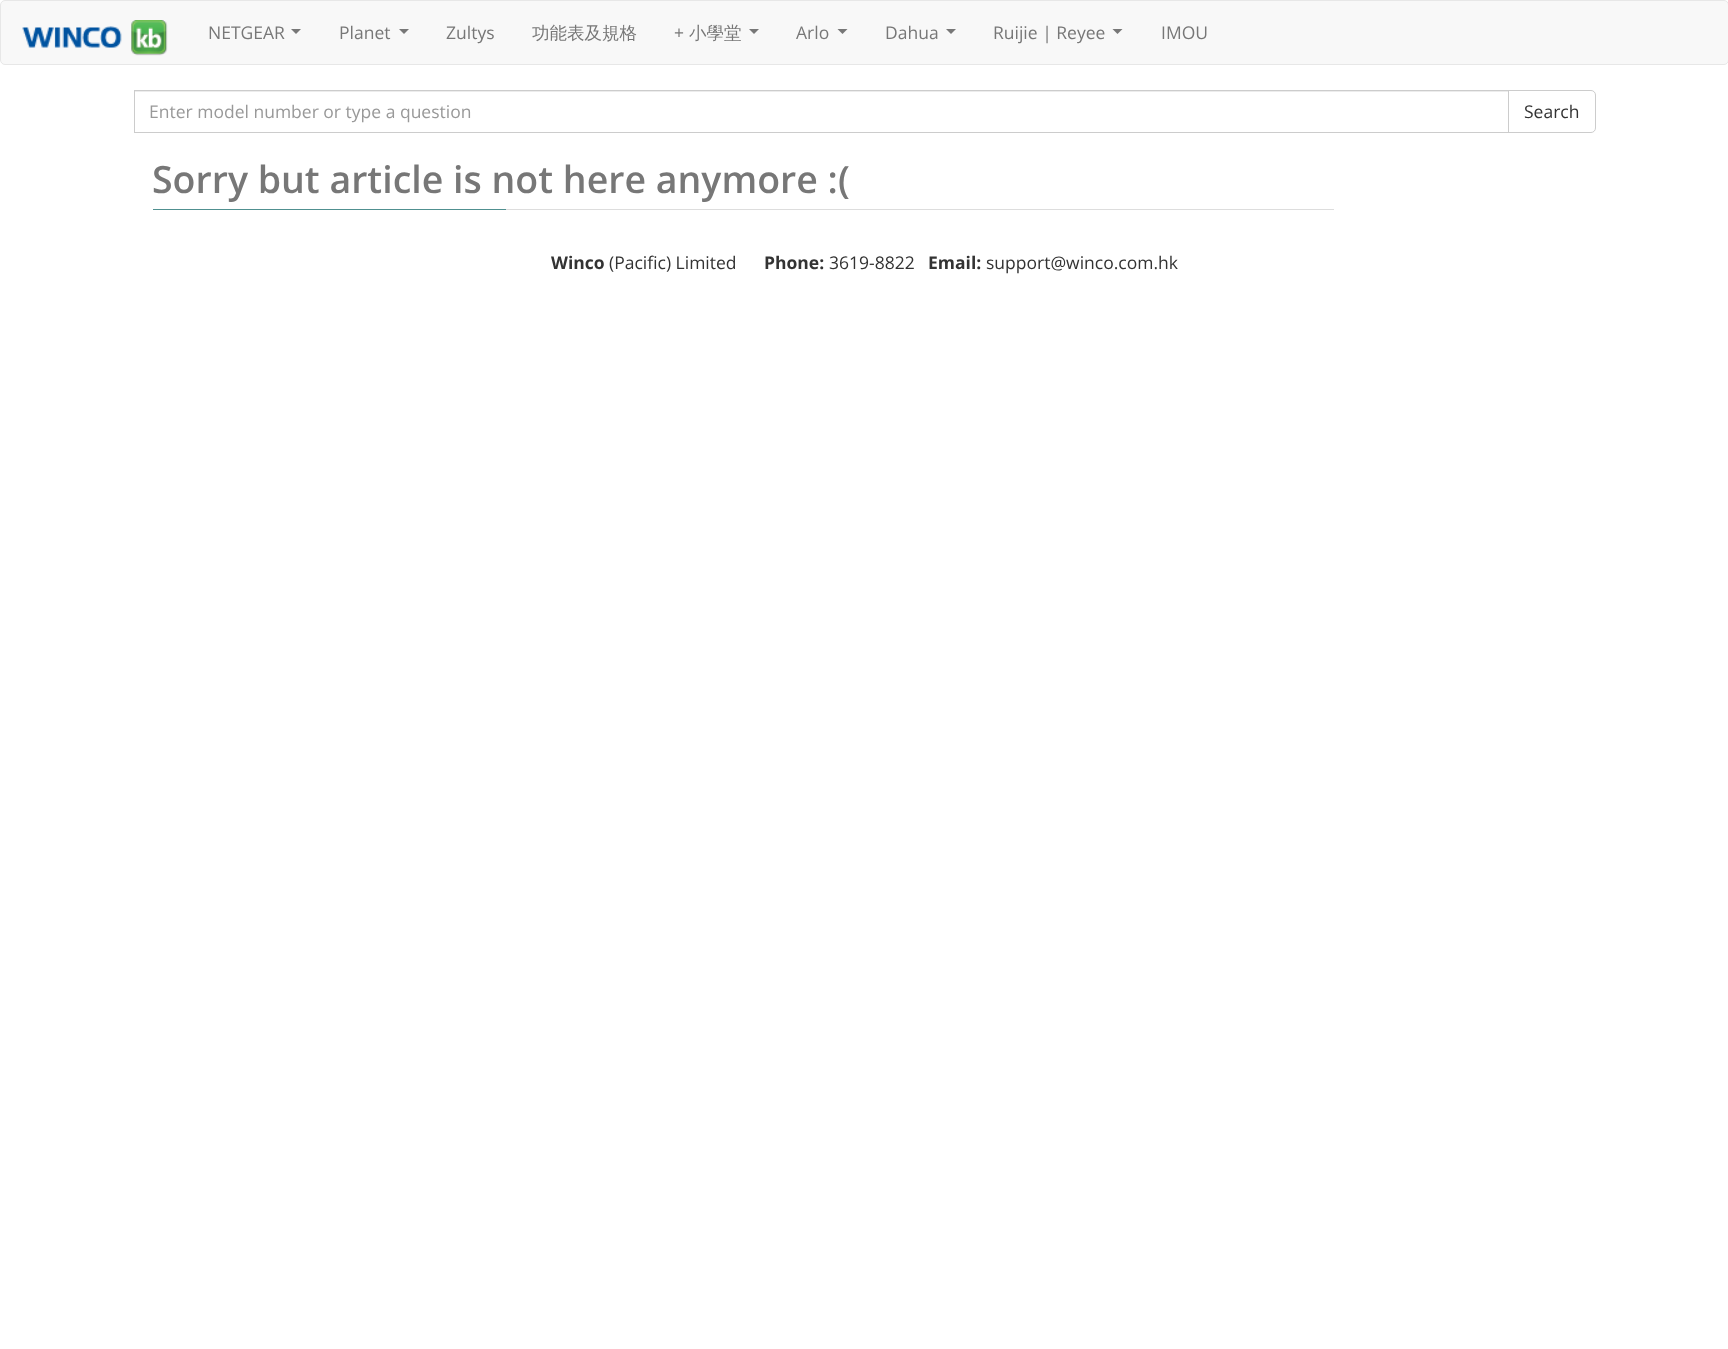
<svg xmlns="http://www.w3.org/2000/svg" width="1728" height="1349">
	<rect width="100%" height="100%" fill="#FFFFFF" />
	<rect x="0.5" y="0.5" width="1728" height="64" rx="4.5" fill="#F8F8F8" stroke="#E7E7E7" />
	<image x="22" y="20" width="146" height="36" href="assets/img1.png" />
	<text x="208" y="39" font-family="Open Sans" font-size="17.5" fill="#777777">NETGEAR</text>
	<path d="M291 29H301L296 34Z" fill="#777777" />
	<text x="339" y="39" font-family="Open Sans" font-size="17.5" fill="#777777">Planet</text>
	<path d="M399 29H409L404 34Z" fill="#777777" />
	<text x="446" y="39" font-family="Open Sans" font-size="17.5" fill="#777777">Zultys</text>
	<text x="532" y="39" font-family="WenQuanYi Zen Hei" font-size="17.5" font-weight="500" fill="#777777">功能表及規格</text>
	<text x="674" y="39" font-family="Open Sans" font-size="17.5" fill="#777777">+</text>
	<text x="689" y="39" font-family="WenQuanYi Zen Hei" font-size="17.5" font-weight="500" fill="#777777">小學堂</text>
	<path d="M749 29H759L754 34Z" fill="#777777" />
	<text x="796" y="39" font-family="Open Sans" font-size="17.5" fill="#777777">Arlo</text>
	<path d="M837.5 29H847.5L842.5 34Z" fill="#777777" />
	<text x="885" y="39" font-family="Open Sans" font-size="17.5" fill="#777777">Dahua</text>
	<path d="M946 29H956L951 34Z" fill="#777777" />
	<text x="993" y="39" font-family="Open Sans" font-size="17.5" fill="#777777">Ruijie | Reyee</text>
	<path d="M1112.5 29H1122.5L1117.5 34Z" fill="#777777" />
	<text x="1161" y="39" font-family="Open Sans" font-size="17.5" fill="#777777">IMOU</text>
	<rect x="135" y="91" width="1373" height="1" fill="#ECECEC" />
	<path d="M1508.5 90.5H1591C1593.5 90.5 1595.5 92.5 1595.5 95V128C1595.5 130.5 1593.5 132.5 1591 132.5H1508.5Z" fill="none" stroke="#CCCCCC" />
	<rect x="134.5" y="90.5" width="1374" height="42" fill="none" stroke="#CCCCCC" />
	<text x="149" y="118" font-family="Open Sans" font-size="17.5" fill="#999999">Enter model number or type a question</text>
	<text x="1524" y="118" font-family="Open Sans" font-size="17.5" fill="#333333">Search</text>
	<rect x="506" y="209" width="828" height="1" fill="#DDDDDD" />
	<text x="152" y="193" font-family="Open Sans" font-size="37.5" font-weight="600" fill="#777777">Sorry but article is not here anymore :(</text>
	<rect x="153" y="209" width="353" height="1" fill="#509090" />
	<text x="551" y="269" font-family="Open Sans" font-size="17.5" font-weight="700" fill="#333333">Winco</text>
	<text x="609" y="269" font-family="Open Sans" font-size="17.5" fill="#333333">(Pacific) Limited</text>
	<text x="764" y="269" font-family="Open Sans" font-size="17.5" font-weight="700" fill="#333333">Phone:</text>
	<text x="829" y="269" font-family="Open Sans" font-size="17.5" fill="#333333">3619-8822</text>
	<text x="928" y="269" font-family="Open Sans" font-size="17.5" font-weight="700" fill="#333333">Email:</text>
	<text x="986" y="269" font-family="Open Sans" font-size="17.5" fill="#333333">support@winco.com.hk</text>
</svg>
